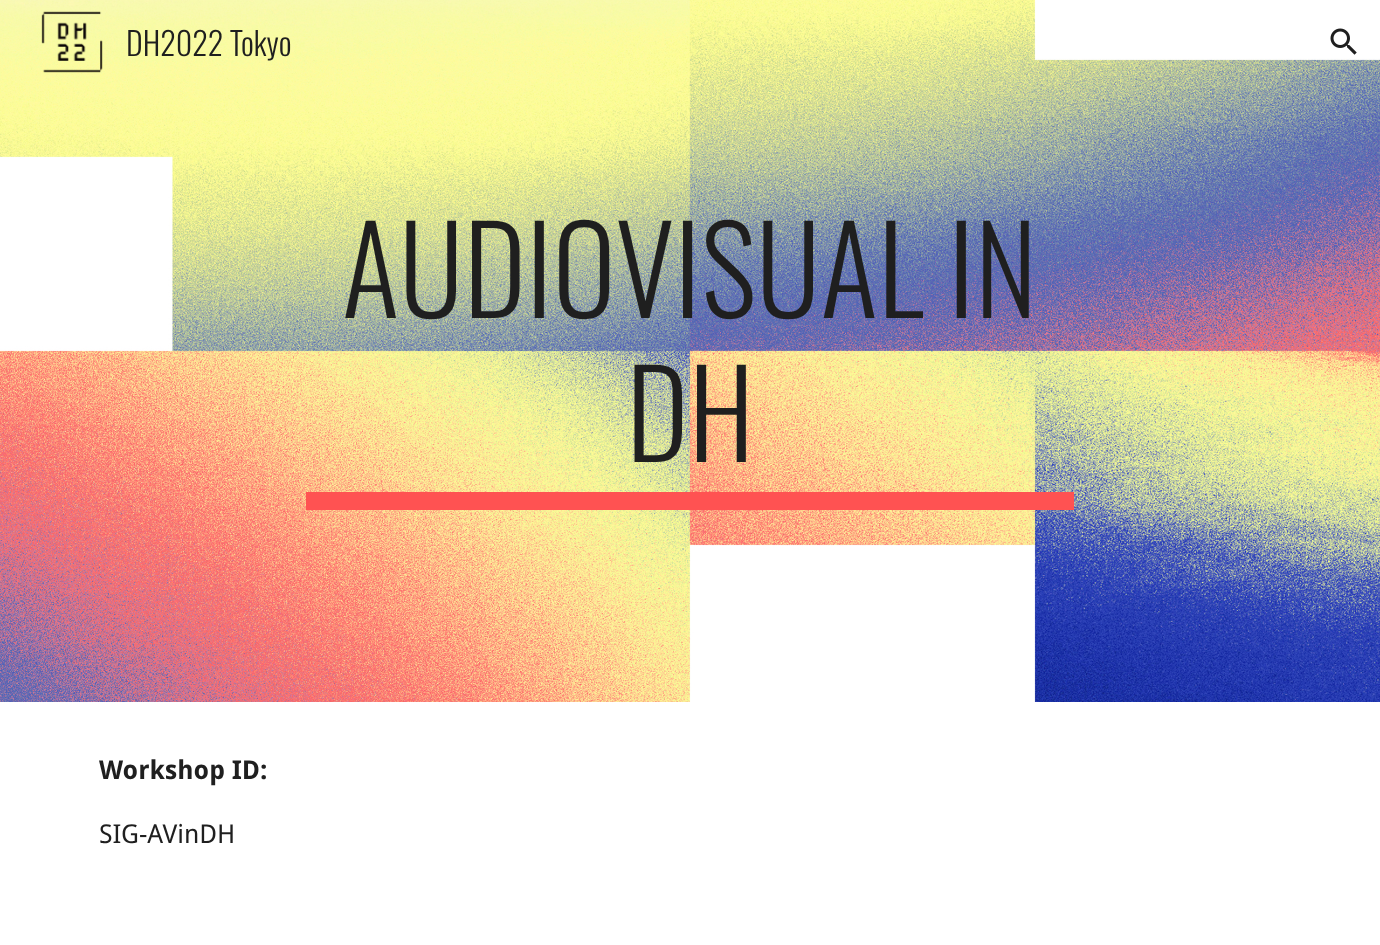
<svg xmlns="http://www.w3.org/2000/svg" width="1380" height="945">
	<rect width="100%" height="100%" fill="#FFFFFF" />
	<image x="0" y="0" width="1380" height="702" href="assets/img3.png" />
	<image x="41" y="11" width="62" height="62" href="assets/img1.png" />
	<text x="126" y="56" font-family="Oswald" font-size="32" font-weight="300" fill="#1F1F1F">DH2022 Tokyo</text>
	<image x="1330" y="28" width="27" height="27" href="assets/img2.png" />
	<g font-family="Oswald" font-size="120" font-weight="300" fill="#1F1F1F">
		<text x="342" y="318">AUDIOVISUAL IN</text>
		<text x="626" y="462">DH</text>
	</g>
	<rect x="306" y="492" width="768" height="18" fill="#FF5252" />
	<text x="99" y="779" font-family="Droid Sans" font-size="26" font-weight="700" fill="#1F1F1F">Workshop ID:</text>
	<text x="99" y="843" font-family="Droid Sans" font-size="26" fill="#1F1F1F">SIG-AVinDH</text>
</svg>
